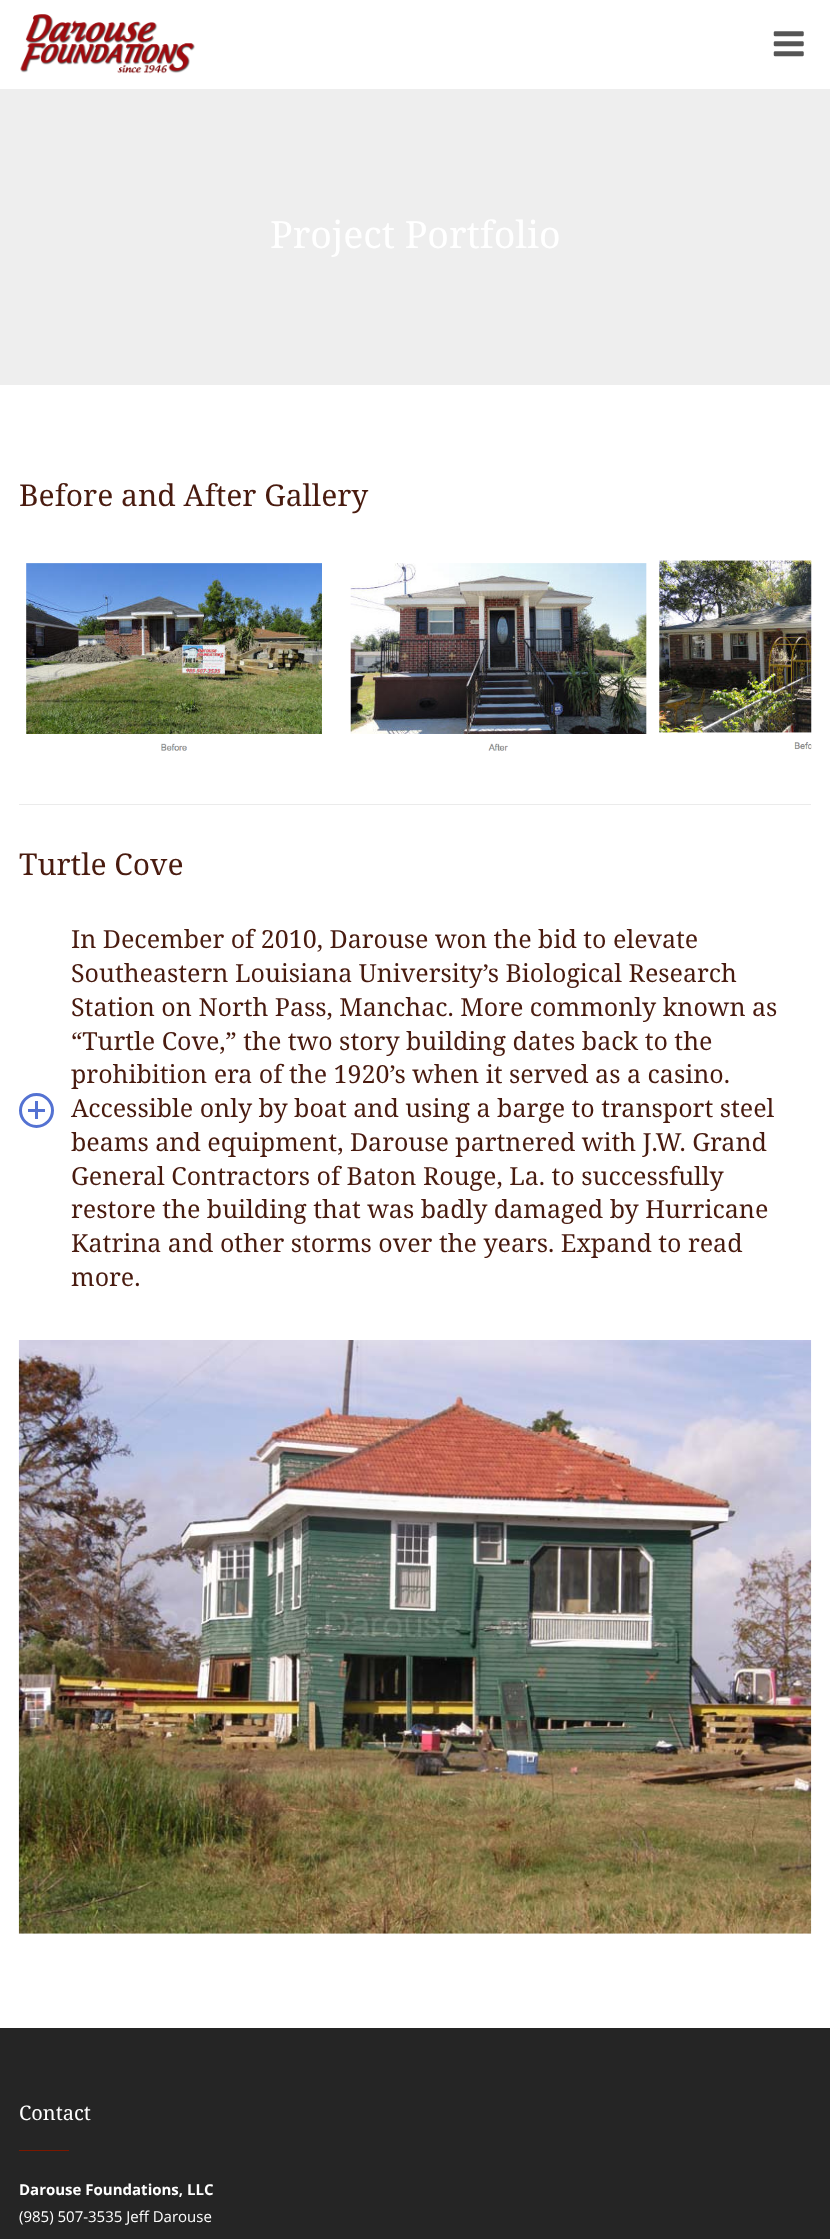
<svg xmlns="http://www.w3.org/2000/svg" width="830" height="2239">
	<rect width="100%" height="100%" fill="#FFFFFF" />
	<image x="20" y="14" width="175" height="60" href="assets/img1.png" />
	<image x="773" y="31" width="31" height="26" href="assets/img2.png" />
	<rect x="0" y="89" width="830" height="296" fill="#EEEEEE" />
	<text x="270" y="248" font-family="Noto Serif" font-size="37.5" fill="#FFFFFF">Project Portfolio</text>
	<text x="19" y="506" font-family="Noto Serif" font-size="30" fill="#491B0F">Before and After Gallery</text>
	<image x="26" y="563" width="621" height="188" href="assets/img3.png" />
	<image x="659" y="560" width="153" height="190" href="assets/img4.png" />
	<rect x="19" y="804" width="792" height="1" fill="#EBEBEB" />
	<text x="19" y="875" font-family="Noto Serif" font-size="30" fill="#491B0F">Turtle Cove</text>
	<g font-family="Noto Serif" font-size="25" fill="#491B0F">
		<text x="71" y="948">In December of 2010, Darouse won the bid to elevate</text>
		<text x="71" y="982">Southeastern Louisiana University’s Biological Research</text>
		<text x="71" y="1016">Station on North Pass, Manchac. More commonly known as</text>
		<text x="71" y="1050">“Turtle Cove,” the two story building dates back to the</text>
		<text x="71" y="1083">prohibition era of the 1920’s when it served as a casino.</text>
	</g>
	<circle cx="36.5" cy="1110.5" r="16" fill="none" stroke="#5472D2" stroke-width="3" />
	<rect x="28" y="1109" width="17" height="3" fill="#5472D2" />
	<rect x="35" y="1101" width="3" height="18" fill="#5472D2" />
	<g font-family="Noto Serif" font-size="25" fill="#491B0F">
		<text x="71" y="1117">Accessible only by boat and using a barge to transport steel</text>
		<text x="71" y="1151">beams and equipment, Darouse partnered with J.W. Grand</text>
		<text x="71" y="1185">General Contractors of Baton Rouge, La. to successfully</text>
		<text x="71" y="1218">restore the building that was badly damaged by Hurricane</text>
		<text x="71" y="1252">Katrina and other storms over the years. Expand to read</text>
		<text x="71" y="1286">more.</text>
	</g>
	<image x="18" y="1340" width="794" height="594" href="assets/img5.png" />
	<rect x="0" y="2028" width="830" height="211" fill="#252525" />
	<text x="19" y="2120" font-family="Noto Serif" font-size="20" fill="#FFFFFF">Contact</text>
	<rect x="19" y="2150" width="50" height="1" fill="#7C1800" />
	<text x="19" y="2195" font-family="Open Sans" font-size="15" font-weight="700" fill="#FFFFFF">Darouse Foundations, LLC</text>
	<text x="19" y="2222" font-family="Open Sans" font-size="15" fill="#FFFFFF">(985) 507-3535 Jeff Darouse</text>
</svg>
